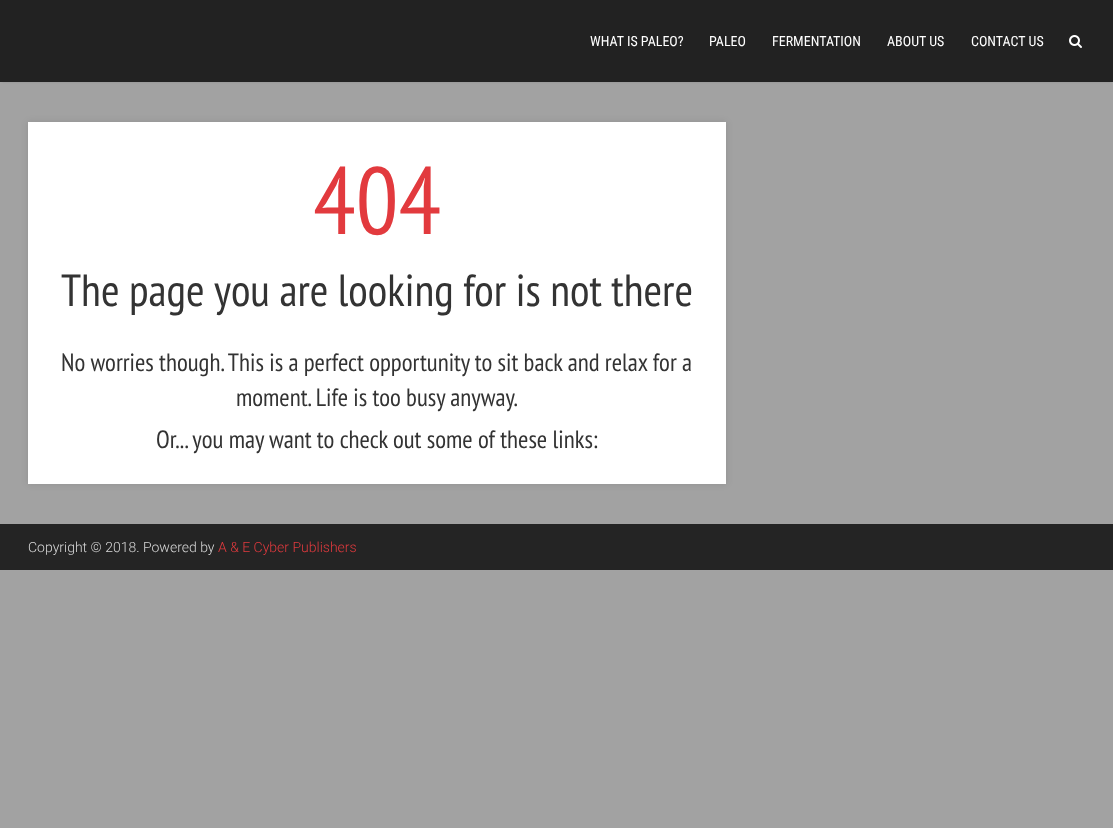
<svg xmlns="http://www.w3.org/2000/svg" width="1113" height="828">
	<rect width="100%" height="100%" fill="#A2A2A2" />
	<rect x="2" y="4" width="1109" height="78" fill="#000000" fill-opacity="0.1" filter="blur(1px)" />
	<rect x="0" y="0" width="1113" height="82" fill="#222222" />
	<g font-family="Roboto Condensed" font-size="14" fill="#FFFFFF">
		<text x="590" y="46">WHAT IS PALEO?</text>
		<text x="709" y="46">PALEO</text>
		<text x="772" y="46">FERMENTATION</text>
		<text x="887" y="46">ABOUT US</text>
		<text x="971" y="46">CONTACT US</text>
	</g>
	<image x="1069" y="35" width="13" height="13" href="assets/img1.png" />
	<rect x="28" y="122" width="698" height="362" fill="#000000" fill-opacity="0.1" filter="blur(3.5px)" />
	<rect x="28" y="122" width="698" height="362" fill="#FFFFFF" />
	<text x="313" y="234" font-family="PT Sans Narrow" font-size="95" fill="#E23A3E">404</text>
	<text x="61" y="306" font-family="PT Sans Narrow" font-size="45" fill="#333333">The page you are looking for is not there</text>
	<g font-family="PT Sans Narrow" font-size="25" fill="#333333">
		<text x="61" y="371">No worries though. This is a perfect opportunity to sit back and relax for a</text>
		<text x="236" y="406">moment. Life is too busy anyway.</text>
		<text x="156" y="448">Or... you may want to check out some of these links:</text>
	</g>
	<rect x="0" y="524" width="1113" height="46" fill="#242424" />
	<text x="28" y="552" font-family="Roboto" font-size="14" font-weight="300" fill="#D8D8D8">Copyright © 2018. Powered by</text>
	<text x="218" y="552" font-family="Roboto" font-size="14" font-weight="300" fill="#E23A3E">A &amp; E Cyber Publishers</text>
</svg>
